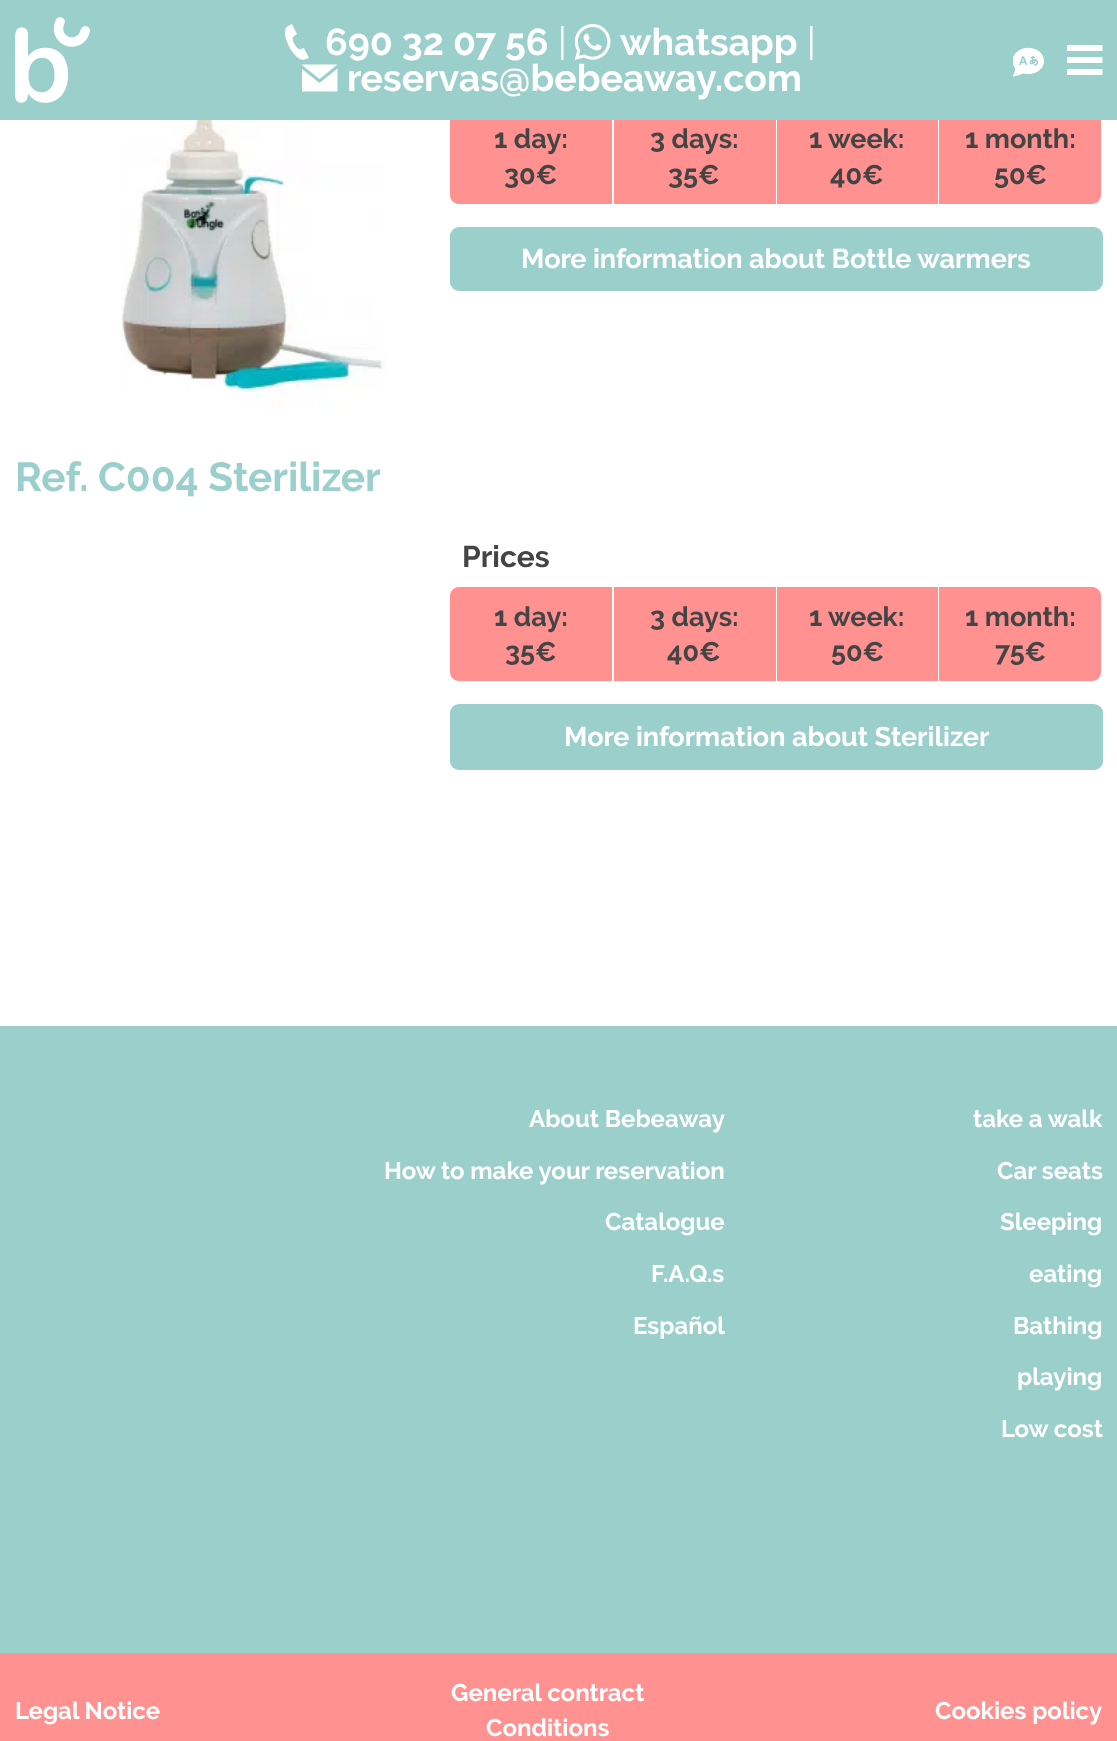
<svg xmlns="http://www.w3.org/2000/svg" width="1117" height="1741">
	<defs>
		<clipPath id="clip1"><rect x="302" y="60" width="36" height="36" /></clipPath>
		<clipPath id="clip2"><rect x="1067" y="42" width="36" height="36" /></clipPath>
	</defs>
	<rect width="100%" height="100%" fill="#FFFFFF" />
	<path d="M459 110H612V204H459C454 204 450 200 450 195V119C450 114 454 110 459 110Z" fill="#FF9191" />
	<path d="M939 110H1092C1097 110 1101 114 1101 119V195C1101 200 1097 204 1092 204H939Z" fill="#FF9191" />
	<rect x="0" y="0" width="1117" height="120" fill="#9ACFCB" />
	<image x="15" y="17" width="75" height="86" href="assets/img1.png" />
	<path d="M309 58L304 48L301 49C297 51 290 38 294 36L297 34L292 24L288 26C278 31 295 65 306 59Z" fill="#FFFFFF" />
	<text x="325" y="55" font-family="Raleway" font-size="37.5" font-weight="700" fill="#FFFFFF">690 32 07 56</text>
	<text x="558" y="55" font-family="Raleway" font-size="37.5" fill="#FFFFFF">|</text>
	<image x="575" y="24" width="36" height="36" href="assets/img2.png" />
	<text x="620" y="55" font-family="Raleway" font-size="37.5" font-weight="700" fill="#FFFFFF">whatsapp</text>
	<text x="807" y="55" font-family="Raleway" font-size="37.5" fill="#FFFFFF">|</text>
	<g clip-path="url(#clip1)">
		<path d="M319.5 79L301.5 64.5H337.5ZM319.5 83L301.5 68.5V91.5H337.5V68.5Z" fill="#FFFFFF" />
	</g>
	<text x="347" y="91" font-family="Raleway" font-size="37.5" font-weight="700" fill="#FFFFFF">reservas@bebeaway.com</text>
	<image x="1013" y="47" width="31" height="30" href="assets/img3.png" />
	<g clip-path="url(#clip2)">
		<path d="M1102.5 51H1066.5V45H1102.5ZM1102.5 57H1066.5V63H1102.5ZM1102.5 69H1066.5V75H1102.5Z" fill="#FFFFFF" />
	</g>
	<image x="121" y="120" width="264" height="289" href="assets/img4.png" />
	<g font-family="Raleway" font-size="27" font-weight="700" fill="#444444">
		<text x="494" y="148">1 day:</text>
		<text x="504" y="184">30€</text>
	</g>
	<rect x="614" y="120" width="162" height="84" fill="#FF9191" />
	<g font-family="Raleway" font-size="27" font-weight="700" fill="#444444">
		<text x="650" y="148">3 days:</text>
		<text x="668" y="184">35€</text>
	</g>
	<rect x="777" y="120" width="161" height="84" fill="#FF9191" />
	<g font-family="Raleway" font-size="27" font-weight="700" fill="#444444">
		<text x="809" y="148">1 week:</text>
		<text x="830" y="184">40€</text>
		<text x="965" y="148">1 month:</text>
		<text x="994" y="184">50€</text>
	</g>
	<rect x="450" y="227" width="653" height="64" rx="9" fill="#9ACFCB" />
	<text x="521" y="268" font-family="Raleway" font-size="27" font-weight="700" fill="#FFFFFF">More information about Bottle warmers</text>
	<text x="15" y="491" font-family="Raleway" font-size="40.5" font-weight="700" fill="#9ACFCB">Ref. C004 Sterilizer</text>
	<text x="462" y="567" font-family="Raleway" font-size="30" font-weight="700" fill="#444444">Prices</text>
	<path d="M459 587H612V681H459C454 681 450 677 450 672V596C450 591 454 587 459 587Z" fill="#FF9191" />
	<g font-family="Raleway" font-size="27" font-weight="700" fill="#444444">
		<text x="494" y="626">1 day:</text>
		<text x="505" y="661">35€</text>
	</g>
	<rect x="614" y="587" width="162" height="94" fill="#FF9191" />
	<g font-family="Raleway" font-size="27" font-weight="700" fill="#444444">
		<text x="650" y="626">3 days:</text>
		<text x="667" y="661">40€</text>
	</g>
	<rect x="777" y="587" width="161" height="94" fill="#FF9191" />
	<g font-family="Raleway" font-size="27" font-weight="700" fill="#444444">
		<text x="809" y="626">1 week:</text>
		<text x="831" y="661">50€</text>
	</g>
	<path d="M939 587H1092C1097 587 1101 591 1101 596V672C1101 677 1097 681 1092 681H939Z" fill="#FF9191" />
	<g font-family="Raleway" font-size="27" font-weight="700" fill="#444444">
		<text x="965" y="626">1 month:</text>
		<text x="995" y="661">75€</text>
	</g>
	<rect x="450" y="704" width="653" height="66" rx="9" fill="#9ACFCB" />
	<text x="564" y="746" font-family="Raleway" font-size="27" font-weight="700" fill="#FFFFFF">More information about Sterilizer</text>
	<rect x="0" y="1026" width="1117" height="627" fill="#9ACFCB" />
	<g font-family="Raleway" font-size="24" font-weight="700" fill="#FFFFFF">
		<text x="529" y="1127">About Bebeaway</text>
		<text x="384" y="1179">How to make your reservation</text>
		<text x="605" y="1230">Catalogue</text>
		<text x="651" y="1282">F.A.Q.s</text>
		<text x="633" y="1334">Español</text>
		<text x="973" y="1127">take a walk</text>
		<text x="997" y="1179">Car seats</text>
		<text x="1000" y="1230">Sleeping</text>
		<text x="1029" y="1282">eating</text>
		<text x="1013" y="1334">Bathing</text>
		<text x="1017" y="1385">playing</text>
		<text x="1001" y="1437">Low cost</text>
	</g>
	<rect x="0" y="1653" width="1117" height="88" fill="#FF9191" />
	<g font-family="Raleway" font-size="24" font-weight="700" fill="#FFFFFF">
		<text x="15" y="1719">Legal Notice</text>
		<text x="451" y="1701">General contract</text>
		<text x="486" y="1736">Conditions</text>
		<text x="935" y="1719">Cookies policy</text>
	</g>
</svg>
